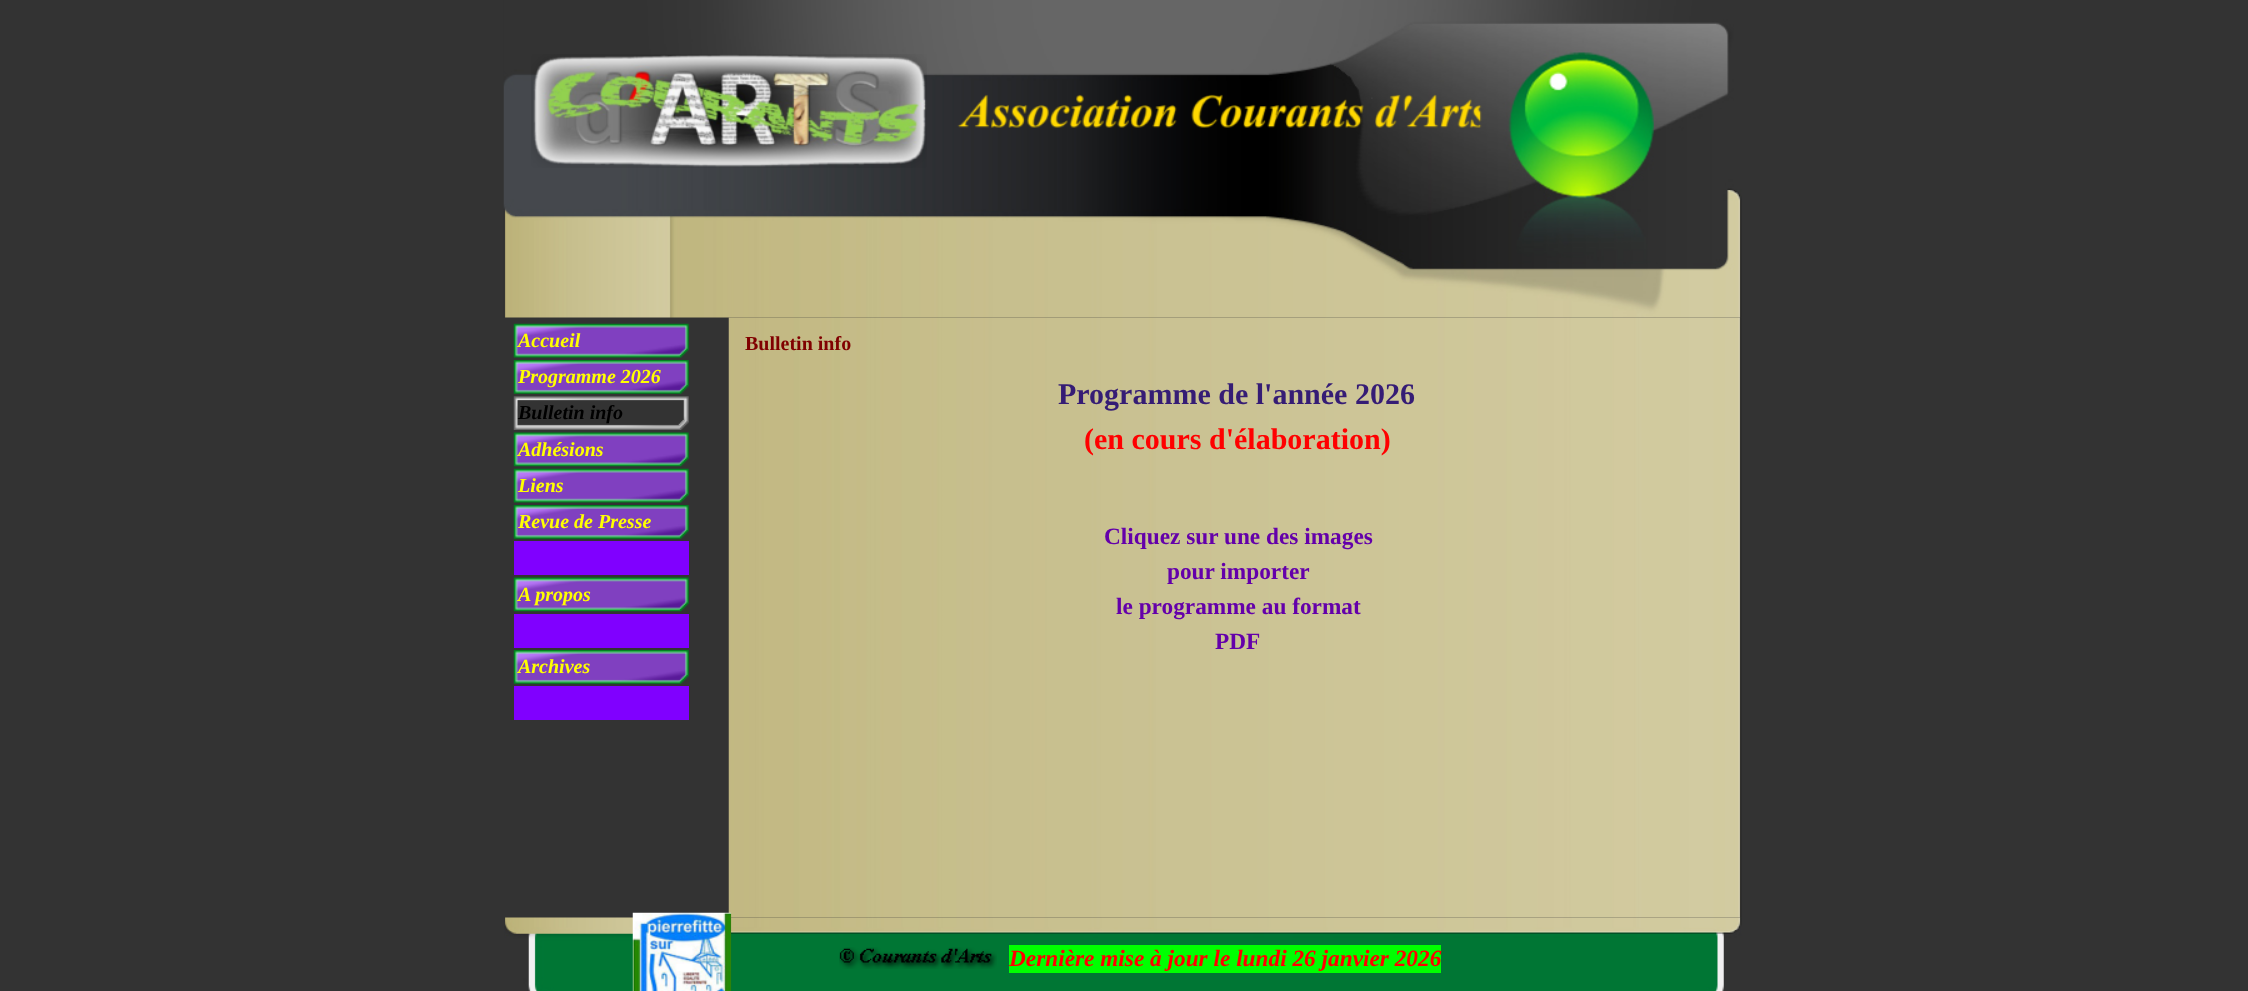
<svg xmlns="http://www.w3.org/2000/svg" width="2248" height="991">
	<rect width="100%" height="100%" fill="#333333" />
	<image x="503" y="0" width="1239" height="318" href="assets/img1.png" />
	<image x="531" y="54" width="396" height="114" href="assets/img2.png" />
	<image x="957" y="94" width="525" height="34" href="assets/img3.png" />
	<image x="513" y="323" width="176" height="35" href="assets/img4.png" />
	<text x="518" y="347" font-family="Liberation Serif" font-size="20" font-weight="700" font-style="italic" fill="#FFFF00">Accueil</text>
	<image x="513" y="360" width="176" height="34" href="assets/img5.png" />
	<text x="518" y="383" font-family="Liberation Serif" font-size="20" font-weight="700" font-style="italic" fill="#FFFF00">Programme 2026</text>
	<image x="513" y="396" width="176" height="34" href="assets/img6.png" />
	<text x="518" y="419" font-family="Liberation Serif" font-size="20" font-weight="700" font-style="italic" fill="#000000">Bulletin info</text>
	<image x="513" y="432" width="176" height="35" href="assets/img7.png" />
	<text x="518" y="456" font-family="Liberation Serif" font-size="20" font-weight="700" font-style="italic" fill="#FFFF00">Adhésions</text>
	<image x="513" y="468" width="176" height="35" href="assets/img4.png" />
	<text x="518" y="492" font-family="Liberation Serif" font-size="20" font-weight="700" font-style="italic" fill="#FFFF00">Liens</text>
	<image x="513" y="505" width="176" height="34" href="assets/img5.png" />
	<text x="518" y="528" font-family="Liberation Serif" font-size="20" font-weight="700" font-style="italic" fill="#FFFF00">Revue de Presse</text>
	<rect x="514" y="541" width="175" height="34" fill="#8000FF" />
	<image x="513" y="577" width="176" height="35" href="assets/img8.png" />
	<text x="518" y="601" font-family="Liberation Serif" font-size="20" font-weight="700" font-style="italic" fill="#FFFF00">A propos</text>
	<rect x="514" y="614" width="175" height="34" fill="#8000FF" />
	<image x="513" y="650" width="176" height="34" href="assets/img5.png" />
	<text x="518" y="673" font-family="Liberation Serif" font-size="20" font-weight="700" font-style="italic" fill="#FFFF00">Archives</text>
	<rect x="514" y="686" width="175" height="34" fill="#8000FF" />
	<image x="728" y="317" width="1014" height="601" href="assets/img9.png" />
	<text x="745" y="350" font-family="Liberation Serif" font-size="20" font-weight="700" fill="#800000">Bulletin info</text>
	<text x="1058" y="404" font-family="Liberation Serif" font-size="30" font-weight="700" fill="#351C75">Programme de l'année 2026</text>
	<text x="1084" y="449" font-family="Liberation Serif" font-size="30" font-weight="700" fill="#FF0000">(en cours d'élaboration)</text>
	<g font-family="Liberation Serif" font-size="23.3" font-weight="700" fill="#6400AA">
		<text x="1104" y="544">Cliquez sur une des images</text>
		<text x="1167" y="579">pour importer</text>
		<text x="1116" y="614">le programme au format</text>
		<text x="1215" y="649">PDF</text>
	</g>
	<image x="504" y="917" width="1238" height="74" href="assets/img10.png" />
	<image x="632" y="912" width="100" height="79" href="assets/img11.png" />
	<image x="839" y="947" width="158" height="22" href="assets/img12.png" />
	<rect x="1009" y="945" width="432" height="28" fill="#00FF00" />
	<text x="1009" y="966" font-family="Liberation Serif" font-size="23.3" font-weight="700" font-style="italic" fill="#FF0000">Dernière mise à jour le lundi 26 janvier 2026</text>
</svg>
